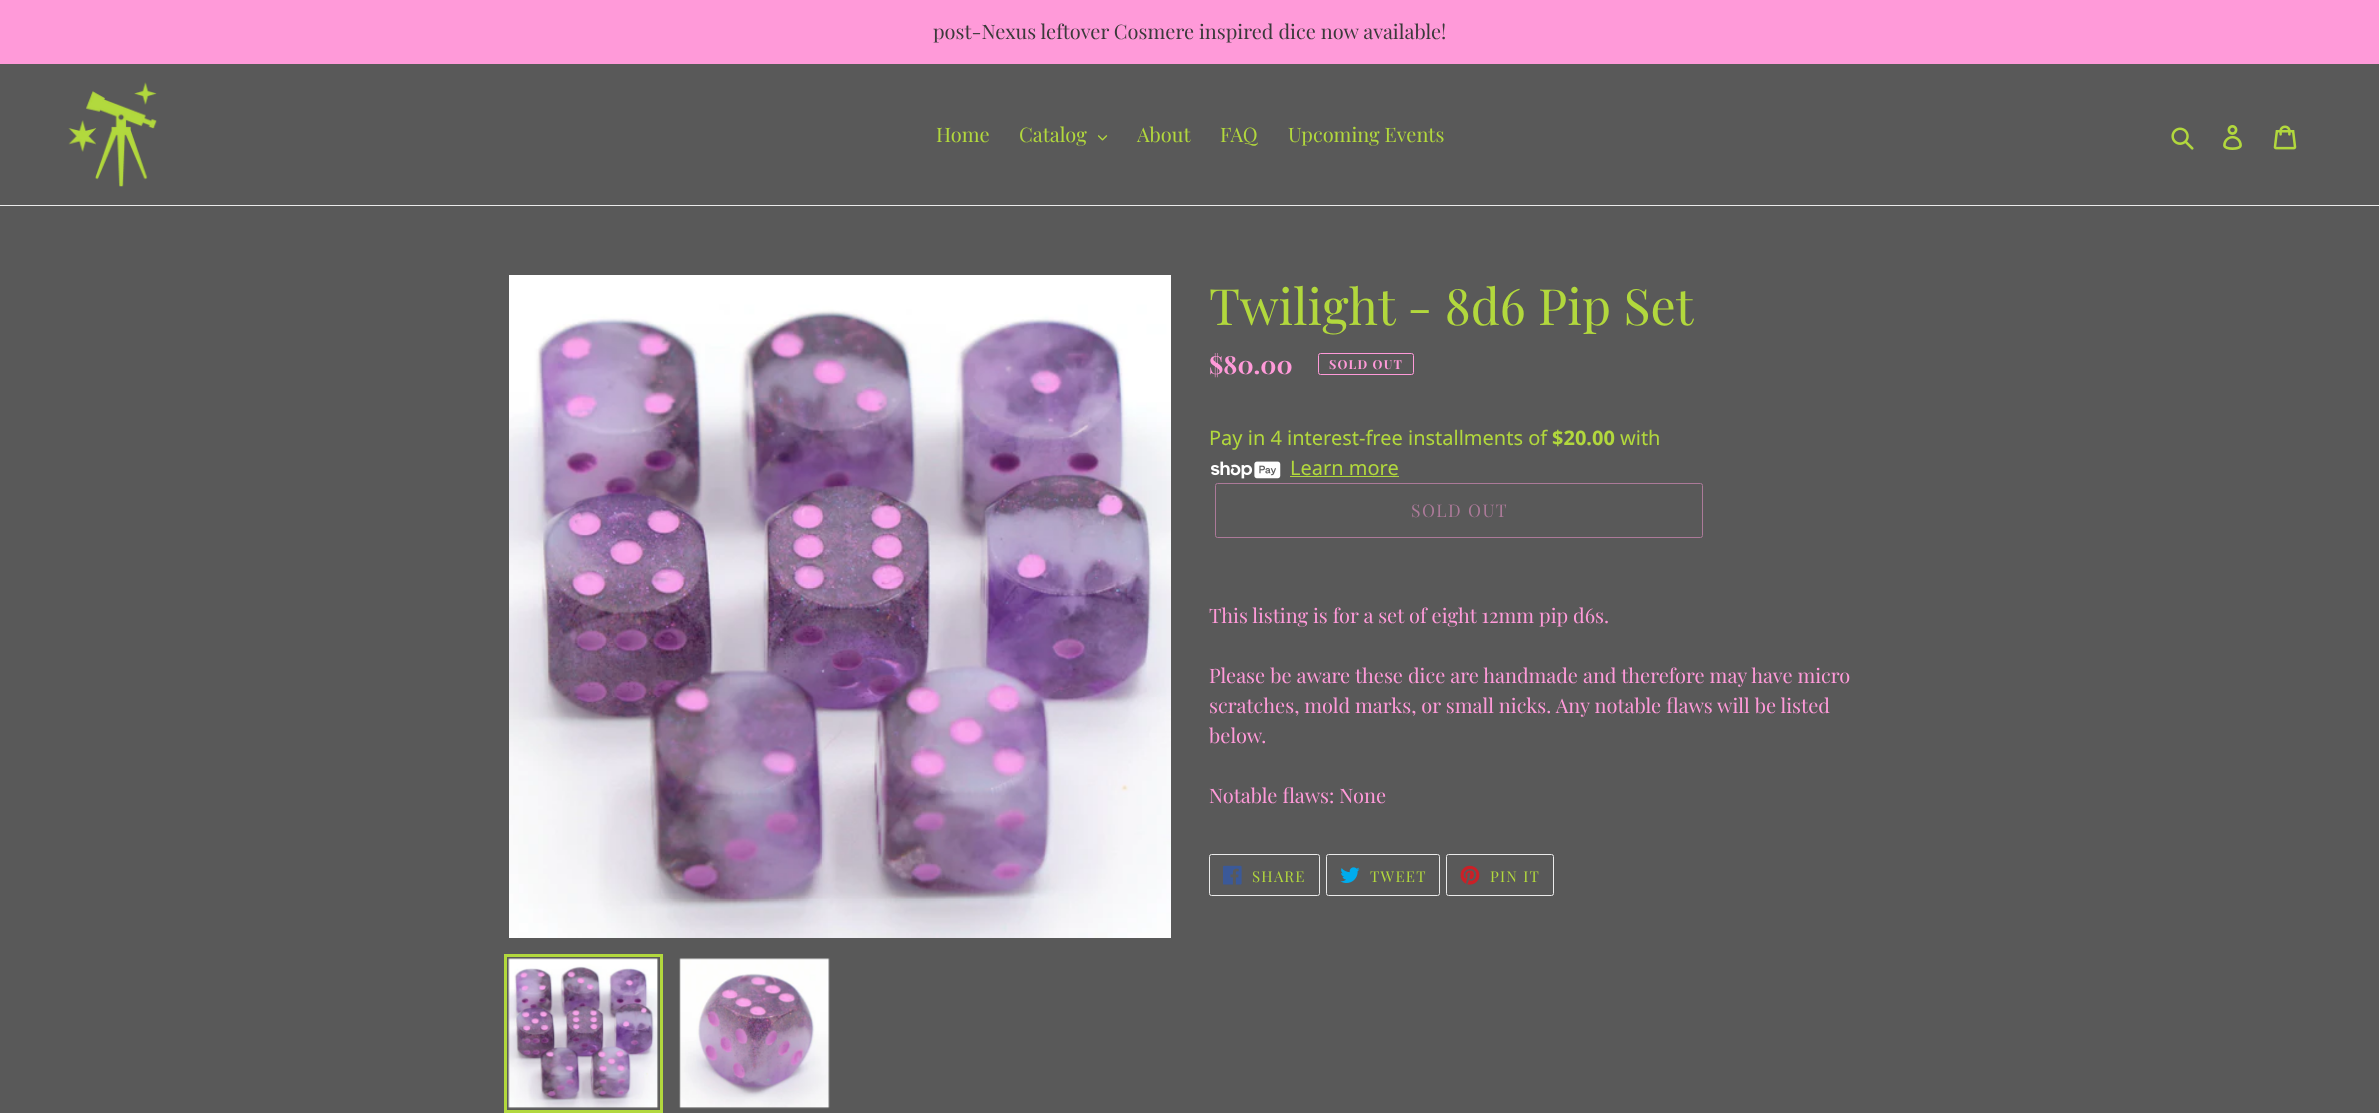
<svg xmlns="http://www.w3.org/2000/svg" width="2379" height="1113">
	<rect width="100%" height="100%" fill="#595959" />
	<rect x="0" y="0" width="2379" height="64" fill="#FF9AD9" />
	<text x="933" y="39" font-family="Playfair Display" font-size="20" fill="#3A3A3A">post-Nexus leftover Cosmere inspired dice now available!</text>
	<rect x="0" y="205" width="2379" height="1" fill="#EBEBEB" />
	<image x="68" y="82" width="89" height="105" href="assets/img1.png" />
	<g font-family="Playfair Display" font-size="20" fill="#B2D83D">
		<text x="936" y="142">Home</text>
		<text x="1019" y="142">Catalog</text>
	</g>
	<image x="1098" y="135" width="10" height="6" href="assets/img2.png" />
	<g font-family="Playfair Display" font-size="20" fill="#B2D83D">
		<text x="1137" y="142">About</text>
		<text x="1220" y="142">FAQ</text>
		<text x="1288" y="142">Upcoming Events</text>
	</g>
	<image x="2171" y="127" width="23" height="23" href="assets/img3.png" />
	<image x="2223" y="125" width="19" height="25" href="assets/img4.png" />
	<image x="2273" y="125" width="24" height="25" href="assets/img5.png" />
	<image x="509" y="275" width="662" height="663" href="assets/img6.png" />
	<rect x="505.5" y="955.5" width="156" height="156" fill="none" stroke="#B2D83D" stroke-width="3" />
	<image x="508" y="958" width="151" height="151" href="assets/img7.png" />
	<image x="679" y="958" width="151" height="151" href="assets/img8.png" />
	<text x="1209" y="325" font-family="Playfair Display" font-size="50" fill="#B2D83D">Twilight - 8d6 Pip Set</text>
	<text x="1209" y="374" font-family="Playfair Display" font-size="25" font-weight="700" fill="#FF9AD9">$80.00</text>
	<rect x="1318.5" y="353.5" width="95" height="21" rx="2" fill="none" stroke="#FF9AD9" />
	<text x="1329" y="369" font-family="Playfair Display" font-size="12.5" font-weight="700" letter-spacing="1.25" fill="#FF9AD9">SOLD OUT</text>
	<text x="1209" y="445" font-family="Noto Sans" font-size="20" fill="#B2D83D">Pay in 4 interest-free installments of</text>
	<text x="1552" y="445" font-family="Noto Sans" font-size="20" font-weight="700" fill="#B2D83D">$20.00</text>
	<text x="1620" y="445" font-family="Noto Sans" font-size="20" fill="#B2D83D">with</text>
	<image x="1211" y="461" width="70" height="18" href="assets/img9.png" />
	<text x="1290" y="475" font-family="Noto Sans" font-size="20" fill="#B2D83D">Learn more</text>
	<rect x="1290" y="476" width="109" height="1" fill="#B2D83D" />
	<rect x="1215.5" y="483.5" width="487" height="54" rx="2" fill="none" stroke="#AC7A99" />
	<text x="1411" y="517" font-family="Playfair Display" font-size="17.5" letter-spacing="1.5" fill="#AC7A99">SOLD OUT</text>
	<g font-family="Playfair Display" font-size="20" fill="#FF9AD9">
		<text x="1209" y="623">This listing is for a set of eight 12mm pip d6s.</text>
		<text x="1209" y="683">Please be aware these dice are handmade and therefore may have micro</text>
		<text x="1209" y="713">scratches, mold marks, or small nicks. Any notable flaws will be listed</text>
		<text x="1209" y="743">below.</text>
		<text x="1209" y="803">Notable flaws: None</text>
	</g>
	<rect x="1209.5" y="854.5" width="110" height="41" rx="2" fill="none" stroke="#EBEBEB" />
	<image x="1223" y="865" width="19" height="20" href="assets/img10.png" />
	<text x="1252" y="882" font-family="Playfair Display" font-size="15" letter-spacing="1.25" fill="#B2D83D">SHARE</text>
	<rect x="1326.5" y="854.5" width="113" height="41" rx="2" fill="none" stroke="#EBEBEB" />
	<image x="1340" y="867" width="20" height="16" href="assets/img11.png" />
	<text x="1370" y="882" font-family="Playfair Display" font-size="15" letter-spacing="1.25" fill="#B2D83D">TWEET</text>
	<rect x="1446.5" y="854.5" width="107" height="41" rx="2" fill="none" stroke="#EBEBEB" />
	<image x="1460" y="865" width="20" height="20" href="assets/img12.png" />
	<text x="1490" y="882" font-family="Playfair Display" font-size="15" letter-spacing="1.25" fill="#B2D83D">PIN IT</text>
</svg>
